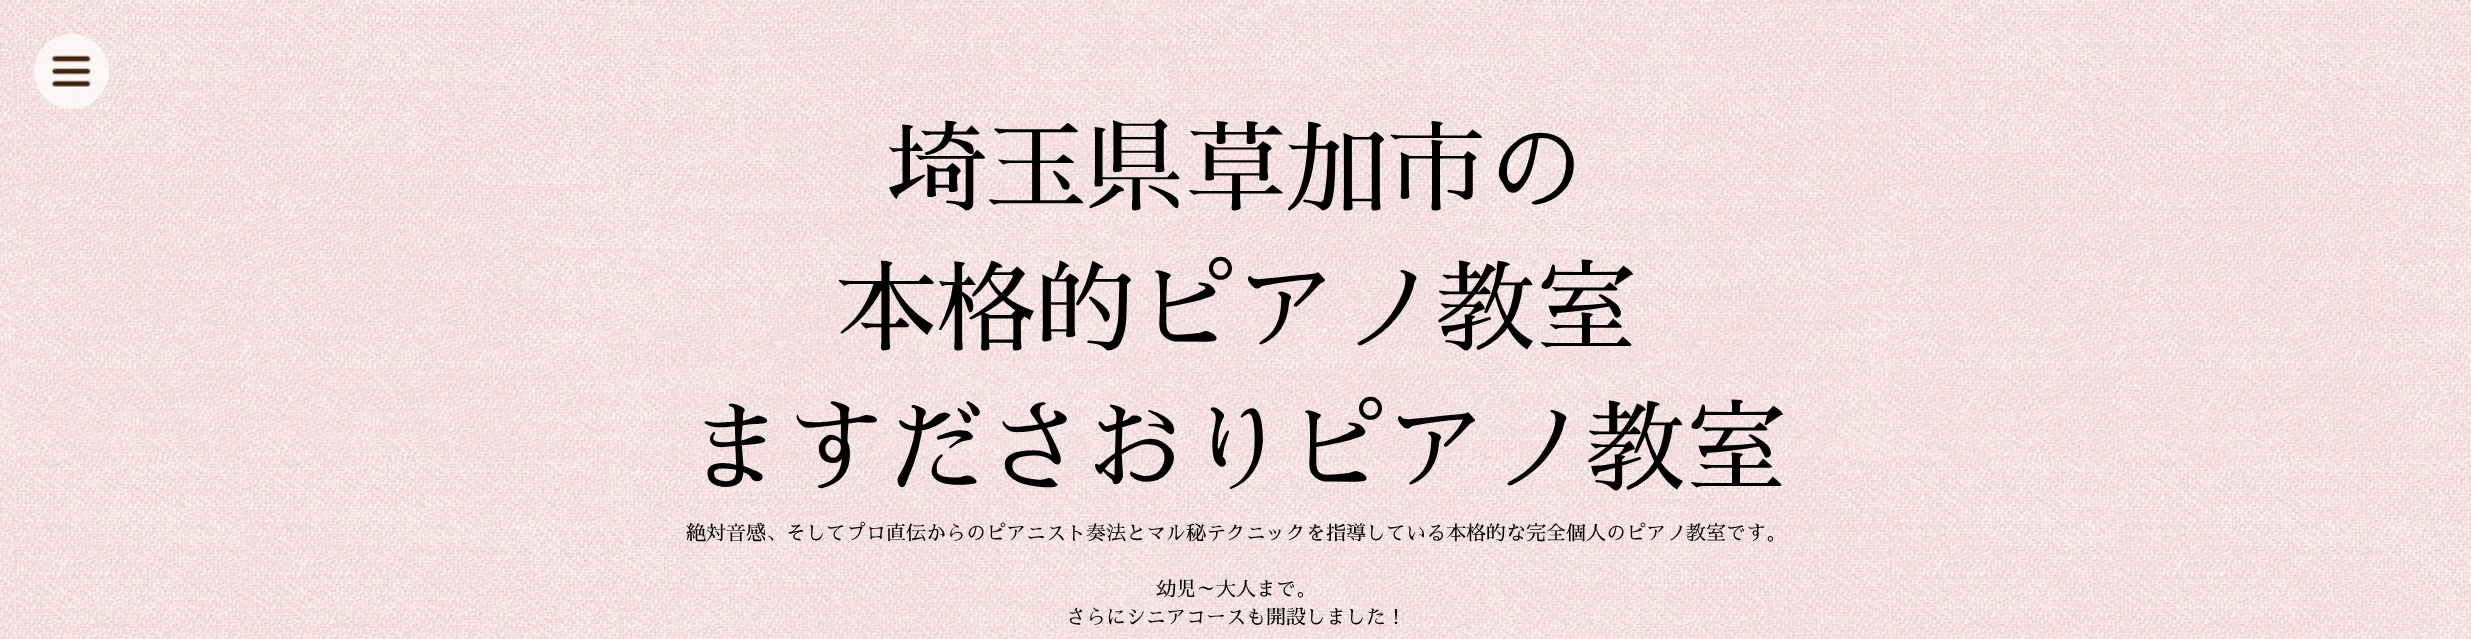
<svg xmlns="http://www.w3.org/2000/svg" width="2471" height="639">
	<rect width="100%" height="100%" fill="#FFFFFF" />
	<image x="0" y="0" width="2471" height="639" href="assets/img1.png" />
	<circle cx="71.5" cy="71.5" r="37.5" fill="#FFFFFF" fill-opacity="0.7" />
	<image x="52" y="55" width="39" height="32" href="assets/img2.png" />
	<g font-family="Sawarabi Mincho" font-size="100" fill="#000000">
		<text x="886" y="204">埼玉県草加市の</text>
		<text x="836" y="344">本格的ピアノ教室</text>
		<text x="686" y="484">ますださおりピアノ教室</text>
	</g>
	<g font-family="Sawarabi Mincho" font-size="20" fill="#000000">
		<text x="686" y="540">絶対音感、そしてプロ直伝からのピアニスト奏法とマル秘テクニックを指導している本格的な完全個人のピアノ教室です。</text>
		<text x="1156" y="596">幼児～大人まで。</text>
		<text x="1066" y="624">さらにシニアコースも開設しました！</text>
	</g>
</svg>
